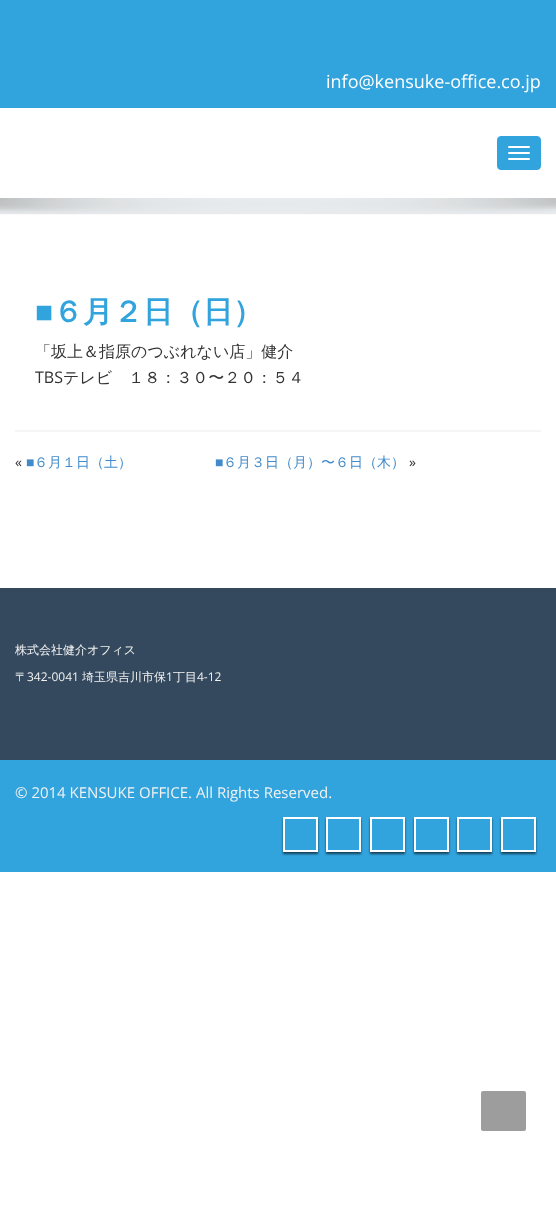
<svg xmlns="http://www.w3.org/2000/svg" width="556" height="1231">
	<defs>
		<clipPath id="clip1"><path d="M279 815H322V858H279ZM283 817H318V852H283Z" clip-rule="evenodd" /></clipPath>
		<clipPath id="clip2"><path d="M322 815H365V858H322ZM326 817H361V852H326Z" clip-rule="evenodd" /></clipPath>
		<clipPath id="clip3"><path d="M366 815H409V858H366ZM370 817H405V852H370Z" clip-rule="evenodd" /></clipPath>
		<clipPath id="clip4"><path d="M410 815H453V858H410ZM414 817H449V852H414Z" clip-rule="evenodd" /></clipPath>
		<clipPath id="clip5"><path d="M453 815H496V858H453ZM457 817H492V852H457Z" clip-rule="evenodd" /></clipPath>
		<clipPath id="clip6"><path d="M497 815H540V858H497ZM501 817H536V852H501Z" clip-rule="evenodd" /></clipPath>
	</defs>
	<rect width="100%" height="100%" fill="#FFFFFF" />
	<rect x="0" y="0" width="556" height="108" fill="#31A3DD" />
	<text x="326" y="88" font-family="Open Sans" font-size="18" fill="#FFFFFF">info@kensuke-office.co.jp</text>
	<rect x="497.5" y="136.5" width="43" height="33" rx="3.5" fill="#31A3DD" stroke="#31A3DD" />
	<rect x="508" y="146" width="22" height="2" rx="1" fill="#FFFFFF" />
	<rect x="508" y="152" width="22" height="2" rx="1" fill="#FFFFFF" />
	<rect x="508" y="158" width="22" height="2" rx="1" fill="#FFFFFF" />
	<rect x="0" y="198" width="556" height="16" fill="#EDF0F2" />
	<image x="0" y="198" width="556" height="17" href="assets/img1.png" />
	<text x="35" y="322" font-family="Liberation Sans" font-size="30" font-weight="700" fill="#31A3DD">■</text>
	<text x="53" y="322" font-family="WenQuanYi Zen Hei" font-size="30" font-weight="700" fill="#31A3DD">６月２日（日）</text>
	<text x="35" y="357" font-family="WenQuanYi Zen Hei" font-size="16" font-weight="500" fill="#333333">「坂上＆指原のつぶれない店」健介</text>
	<text x="35" y="383" font-family="Open Sans" font-size="16" fill="#333333">TBS</text>
	<text x="63" y="383" font-family="WenQuanYi Zen Hei" font-size="16" font-weight="500" fill="#333333">テレビ　１８：３０〜２０：５４</text>
	<rect x="15" y="430" width="526" height="2" fill="#F5F5F5" />
	<text x="15" y="467" font-family="Open Sans" font-size="14" fill="#333333">«</text>
	<text x="26" y="467" font-family="Liberation Sans" font-size="14" fill="#428BCA">■</text>
	<text x="34" y="467" font-family="WenQuanYi Zen Hei" font-size="14" font-weight="500" fill="#428BCA">６月１日（土）</text>
	<text x="215" y="467" font-family="Liberation Sans" font-size="14" fill="#428BCA">■</text>
	<text x="223" y="467" font-family="WenQuanYi Zen Hei" font-size="14" font-weight="500" fill="#428BCA">６月３日（月）〜６日（木）</text>
	<text x="409" y="467" font-family="Open Sans" font-size="14" fill="#333333">»</text>
	<rect x="0" y="588" width="556" height="172" fill="#34495E" />
	<g font-family="WenQuanYi Zen Hei" font-size="12" font-weight="500" fill="#F2F2F2">
		<text x="15" y="654">株式会社健介オフィス</text>
		<text x="15" y="681">〒</text>
	</g>
	<text x="27" y="681" font-family="Open Sans" font-size="12" fill="#F2F2F2">342-0041</text>
	<text x="82" y="681" font-family="WenQuanYi Zen Hei" font-size="12" font-weight="500" fill="#F2F2F2">埼玉県吉川市保</text>
	<text x="166" y="681" font-family="Open Sans" font-size="12" fill="#F2F2F2">1</text>
	<text x="173" y="681" font-family="WenQuanYi Zen Hei" font-size="12" font-weight="500" fill="#F2F2F2">丁目</text>
	<text x="197" y="681" font-family="Open Sans" font-size="12" fill="#F2F2F2">4-12</text>
	<rect x="0" y="760" width="556" height="112" fill="#31A3DD" />
	<text x="15" y="798" font-family="Open Sans" font-size="15" fill="#F2F2F2">© 2014 KENSUKE OFFICE. All Rights Reserved.</text>
	<g clip-path="url(#clip1)">
		<rect x="283" y="819" width="35" height="35" fill="#000000" fill-opacity="0.6" filter="blur(1px)" />
	</g>
	<rect x="284" y="818" width="33" height="33" fill="none" stroke="#FFFFFF" stroke-width="2" />
	<g clip-path="url(#clip2)">
		<rect x="326" y="819" width="35" height="35" fill="#000000" fill-opacity="0.6" filter="blur(1px)" />
	</g>
	<rect x="327" y="818" width="33" height="33" fill="none" stroke="#FFFFFF" stroke-width="2" />
	<g clip-path="url(#clip3)">
		<rect x="370" y="819" width="35" height="35" fill="#000000" fill-opacity="0.6" filter="blur(1px)" />
	</g>
	<rect x="371" y="818" width="33" height="33" fill="none" stroke="#FFFFFF" stroke-width="2" />
	<g clip-path="url(#clip4)">
		<rect x="414" y="819" width="35" height="35" fill="#000000" fill-opacity="0.6" filter="blur(1px)" />
	</g>
	<rect x="415" y="818" width="33" height="33" fill="none" stroke="#FFFFFF" stroke-width="2" />
	<g clip-path="url(#clip5)">
		<rect x="457" y="819" width="35" height="35" fill="#000000" fill-opacity="0.6" filter="blur(1px)" />
	</g>
	<rect x="458" y="818" width="33" height="33" fill="none" stroke="#FFFFFF" stroke-width="2" />
	<g clip-path="url(#clip6)">
		<rect x="501" y="819" width="35" height="35" fill="#000000" fill-opacity="0.6" filter="blur(1px)" />
	</g>
	<rect x="502" y="818" width="33" height="33" fill="none" stroke="#FFFFFF" stroke-width="2" />
	<rect x="481" y="1091" width="45" height="40" rx="2" fill="#9D9D9D" />
</svg>
